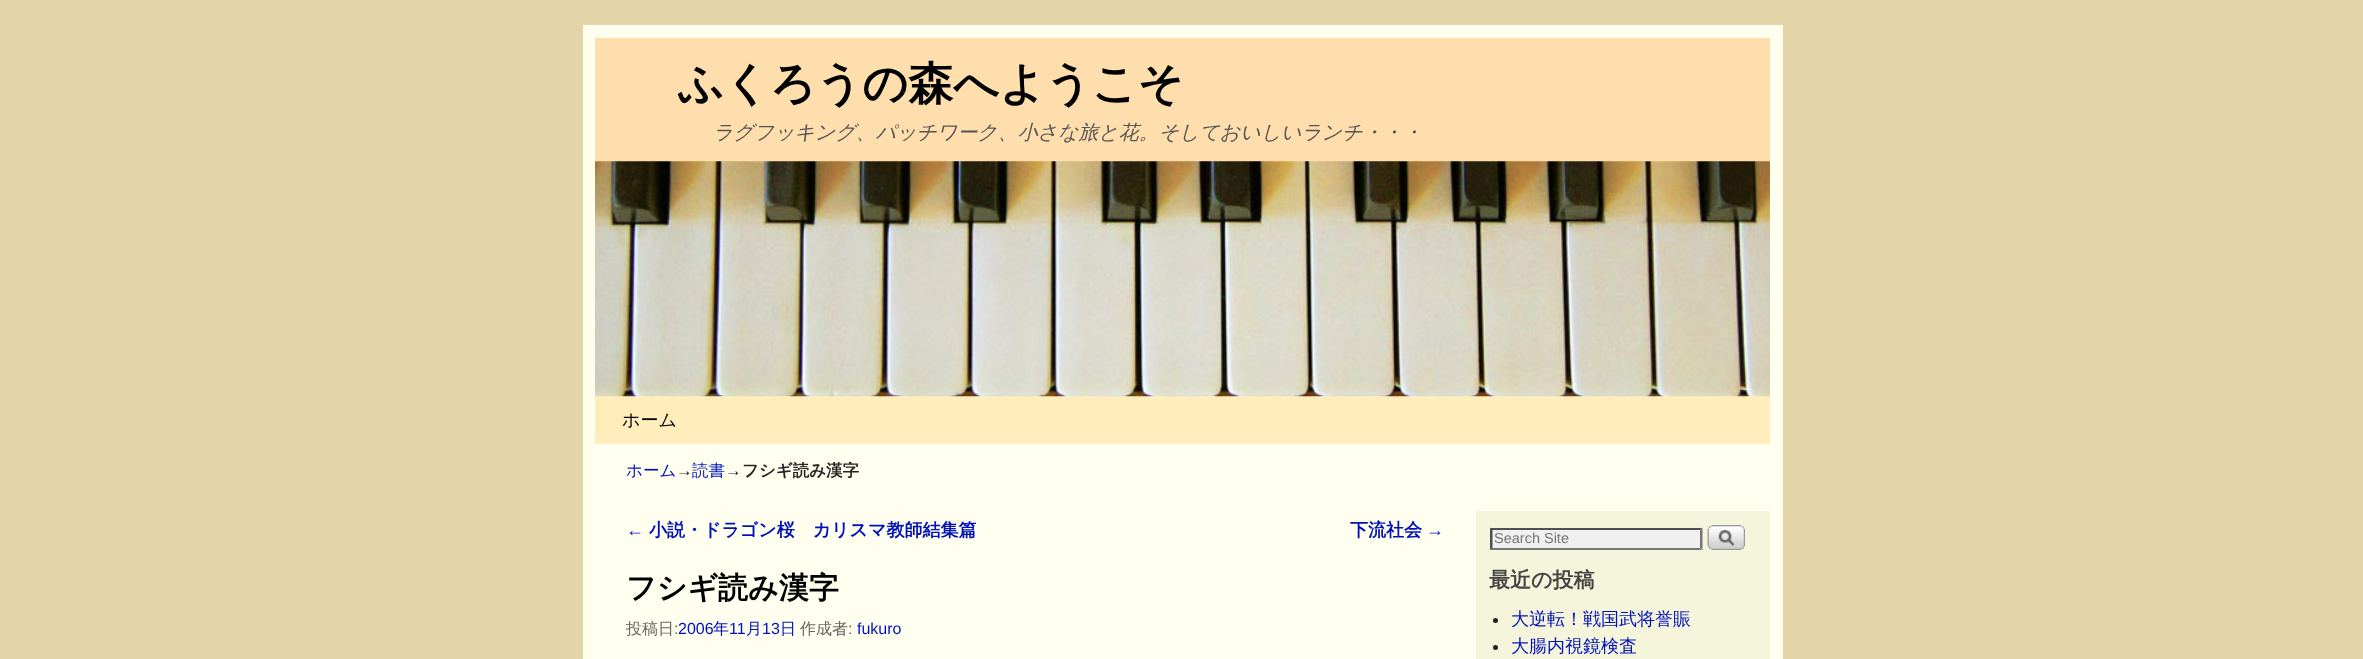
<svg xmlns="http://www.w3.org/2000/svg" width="2363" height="659">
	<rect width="100%" height="100%" fill="#E3D5A7" />
	<rect x="583" y="25" width="1200" height="634" fill="#FFFFF0" />
	<rect x="595" y="38" width="1175" height="124" fill="#FFDEAD" />
	<text x="678" y="99" font-family="WenQuanYi Zen Hei" font-size="45" font-weight="700" fill="#000000">ふくろうの森へようこそ</text>
	<text x="713" y="139" font-family="WenQuanYi Zen Hei" font-size="19.95" font-weight="500" font-style="italic" fill="#555555">ラグフッキング、パッチワーク、小さな旅と花。そしておいしいランチ・・・</text>
	<rect x="595" y="396" width="1175" height="48" fill="#FFEEBB" />
	<image x="595" y="161" width="1175" height="236" href="assets/img1.png" />
	<text x="622" y="426" font-family="WenQuanYi Zen Hei" font-size="18" font-weight="500" fill="#000000">ホーム</text>
	<text x="626" y="476" font-family="WenQuanYi Zen Hei" font-size="16.5" font-weight="500" fill="#0011BB">ホーム</text>
	<text x="676" y="476" font-family="Liberation Sans" font-size="16.5" fill="#222222">→</text>
	<text x="692" y="476" font-family="WenQuanYi Zen Hei" font-size="16.5" font-weight="500" fill="#0011BB">読書</text>
	<text x="725" y="476" font-family="Liberation Sans" font-size="16.5" fill="#222222">→</text>
	<text x="742" y="476" font-family="WenQuanYi Zen Hei" font-size="16.5" font-weight="700" fill="#222222">フシギ読み漢字</text>
	<text x="626" y="536" font-family="Liberation Sans" font-size="18" fill="#0011BB">←</text>
	<g font-family="WenQuanYi Zen Hei" font-size="18" font-weight="700" fill="#0011BB">
		<text x="649" y="536">小説・ドラゴン桜　カリスマ教師結集篇</text>
		<text x="1350" y="536">下流社会</text>
	</g>
	<text x="1426" y="536" font-family="Liberation Sans" font-size="18" fill="#0011BB">→</text>
	<text x="626" y="598" font-family="WenQuanYi Zen Hei" font-size="30" font-weight="700" fill="#000000">フシギ読み漢字</text>
	<text x="626" y="634" font-family="WenQuanYi Zen Hei" font-size="16" font-weight="500" fill="#666666">投稿日</text>
	<text x="674" y="634" font-family="Liberation Sans" font-size="16" fill="#666666">:</text>
	<text x="678" y="634" font-family="Liberation Sans" font-size="16" fill="#0011BB">2006</text>
	<text x="713" y="634" font-family="WenQuanYi Zen Hei" font-size="16" font-weight="500" fill="#0011BB">年</text>
	<text x="729" y="634" font-family="Liberation Sans" font-size="16" fill="#0011BB">11</text>
	<text x="746" y="634" font-family="WenQuanYi Zen Hei" font-size="16" font-weight="500" fill="#0011BB">月</text>
	<text x="762" y="634" font-family="Liberation Sans" font-size="16" fill="#0011BB">13</text>
	<text x="780" y="634" font-family="WenQuanYi Zen Hei" font-size="16" font-weight="500" fill="#0011BB">日</text>
	<text x="800" y="634" font-family="WenQuanYi Zen Hei" font-size="16" font-weight="500" fill="#666666">作成者</text>
	<text x="848" y="634" font-family="Liberation Sans" font-size="16" fill="#666666">:</text>
	<text x="857" y="634" font-family="Liberation Sans" font-size="16" fill="#0011BB">fukuro</text>
	<rect x="1476" y="511" width="294" height="148" fill="#F5F5DC" />
	<rect x="1490" y="528" width="213" height="22" fill="#F0F0F0" />
	<path d="M1490 528H1702L1700 530H1492Z" fill="#4F4F4F" />
	<path d="M1702.5 527.5V550L1700 547.5V530Z" fill="#767676" />
	<path d="M1702 550H1490L1492 548H1700Z" fill="#767676" />
	<path d="M1490 550V527.5L1492.5 530V547.5Z" fill="#4F4F4F" />
	<text x="1494" y="543" font-family="Liberation Sans" font-size="14.5" fill="#757575">Search Site</text>
	<image x="1707" y="525" width="38" height="25" href="assets/img2.png" />
	<text x="1489" y="587" font-family="WenQuanYi Zen Hei" font-size="21" font-weight="700" fill="#444444">最近の投稿</text>
	<circle cx="1495.5" cy="620.5" r="2.5" fill="#222222" />
	<text x="1511" y="625" font-family="WenQuanYi Zen Hei" font-size="18" font-weight="500" fill="#0011BB">大逆転！戦国武将誉賑</text>
	<circle cx="1495.5" cy="647.5" r="2.5" fill="#222222" />
	<text x="1511" y="652" font-family="WenQuanYi Zen Hei" font-size="18" font-weight="500" fill="#0011BB">大腸内視鏡検査</text>
</svg>
